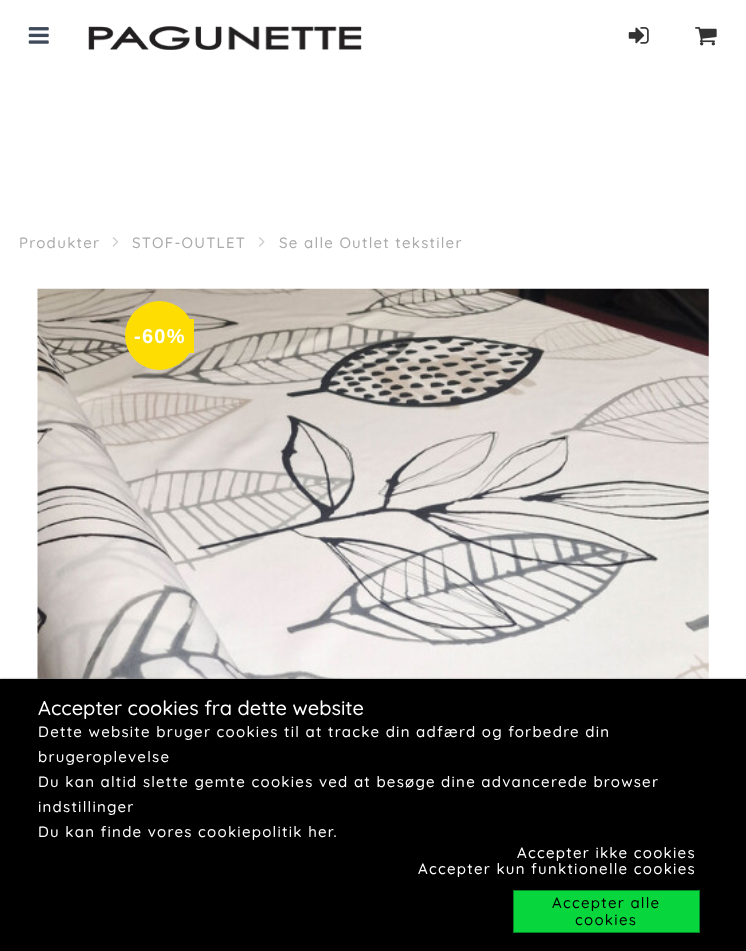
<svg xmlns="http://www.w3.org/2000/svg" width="746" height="951">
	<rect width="100%" height="100%" fill="#FFFFFF" />
	<image x="28" y="27" width="21" height="17" href="assets/img1.png" />
	<image x="88" y="26" width="274" height="24" href="assets/img2.png" />
	<image x="628" y="27" width="21" height="17" href="assets/img3.png" />
	<image x="695" y="27" width="22" height="19" href="assets/img4.png" />
	<text x="19" y="248" font-family="Quicksand" font-size="15" font-weight="500" letter-spacing="1.25" fill="#AAAAAA">Produkter</text>
	<image x="112" y="237" width="7" height="10" href="assets/img5.png" />
	<text x="132" y="248" font-family="Quicksand" font-size="15" font-weight="500" letter-spacing="1.25" fill="#AAAAAA">STOF-OUTLET</text>
	<image x="259" y="237" width="6" height="10" href="assets/img6.png" />
	<text x="279" y="248" font-family="Quicksand" font-size="15" font-weight="500" letter-spacing="1.25" fill="#AAAAAA">Se alle Outlet tekstiler</text>
	<image x="37" y="288" width="672" height="391" href="assets/img7.png" />
	<circle cx="159.5" cy="335.5" r="34.5" fill="#FEDE02" />
	<rect x="189" y="319" width="5" height="34" fill="#FEDE02" />
	<text x="134" y="343" font-family="Liberation Sans" font-size="20" font-weight="700" letter-spacing="1.25" fill="#FFFFFF">-60%</text>
	<rect x="0" y="679" width="746" height="272" fill="#808080" filter="blur(1px)" />
	<rect x="0" y="679" width="746" height="272" fill="#000000" />
	<text x="38" y="715" font-family="Quicksand" font-size="20" font-weight="500" fill="#FFFFFF">Accepter cookies fra dette website</text>
	<g font-family="Quicksand" font-size="15" font-weight="500" letter-spacing="1.25" fill="#FFFFFF">
		<text x="38" y="737">Dette website bruger cookies til at tracke din adfærd og forbedre din</text>
		<text x="38" y="762">brugeroplevelse</text>
		<text x="38" y="787">Du kan altid slette gemte cookies ved at besøge dine advancerede browser</text>
		<text x="38" y="812">indstillinger</text>
		<text x="38" y="837">Du kan finde vores cookiepolitik her.</text>
		<text x="517" y="858">Accepter ikke cookies</text>
		<text x="418" y="874">Accepter kun funktionelle cookies</text>
	</g>
	<rect x="513.5" y="890.5" width="186" height="42" fill="#07D63C" stroke="#048425" />
	<g font-family="Quicksand" font-size="15" font-weight="500" letter-spacing="1.25" fill="#000000">
		<text x="552" y="908">Accepter alle</text>
		<text x="575" y="925">cookies</text>
	</g>
</svg>
